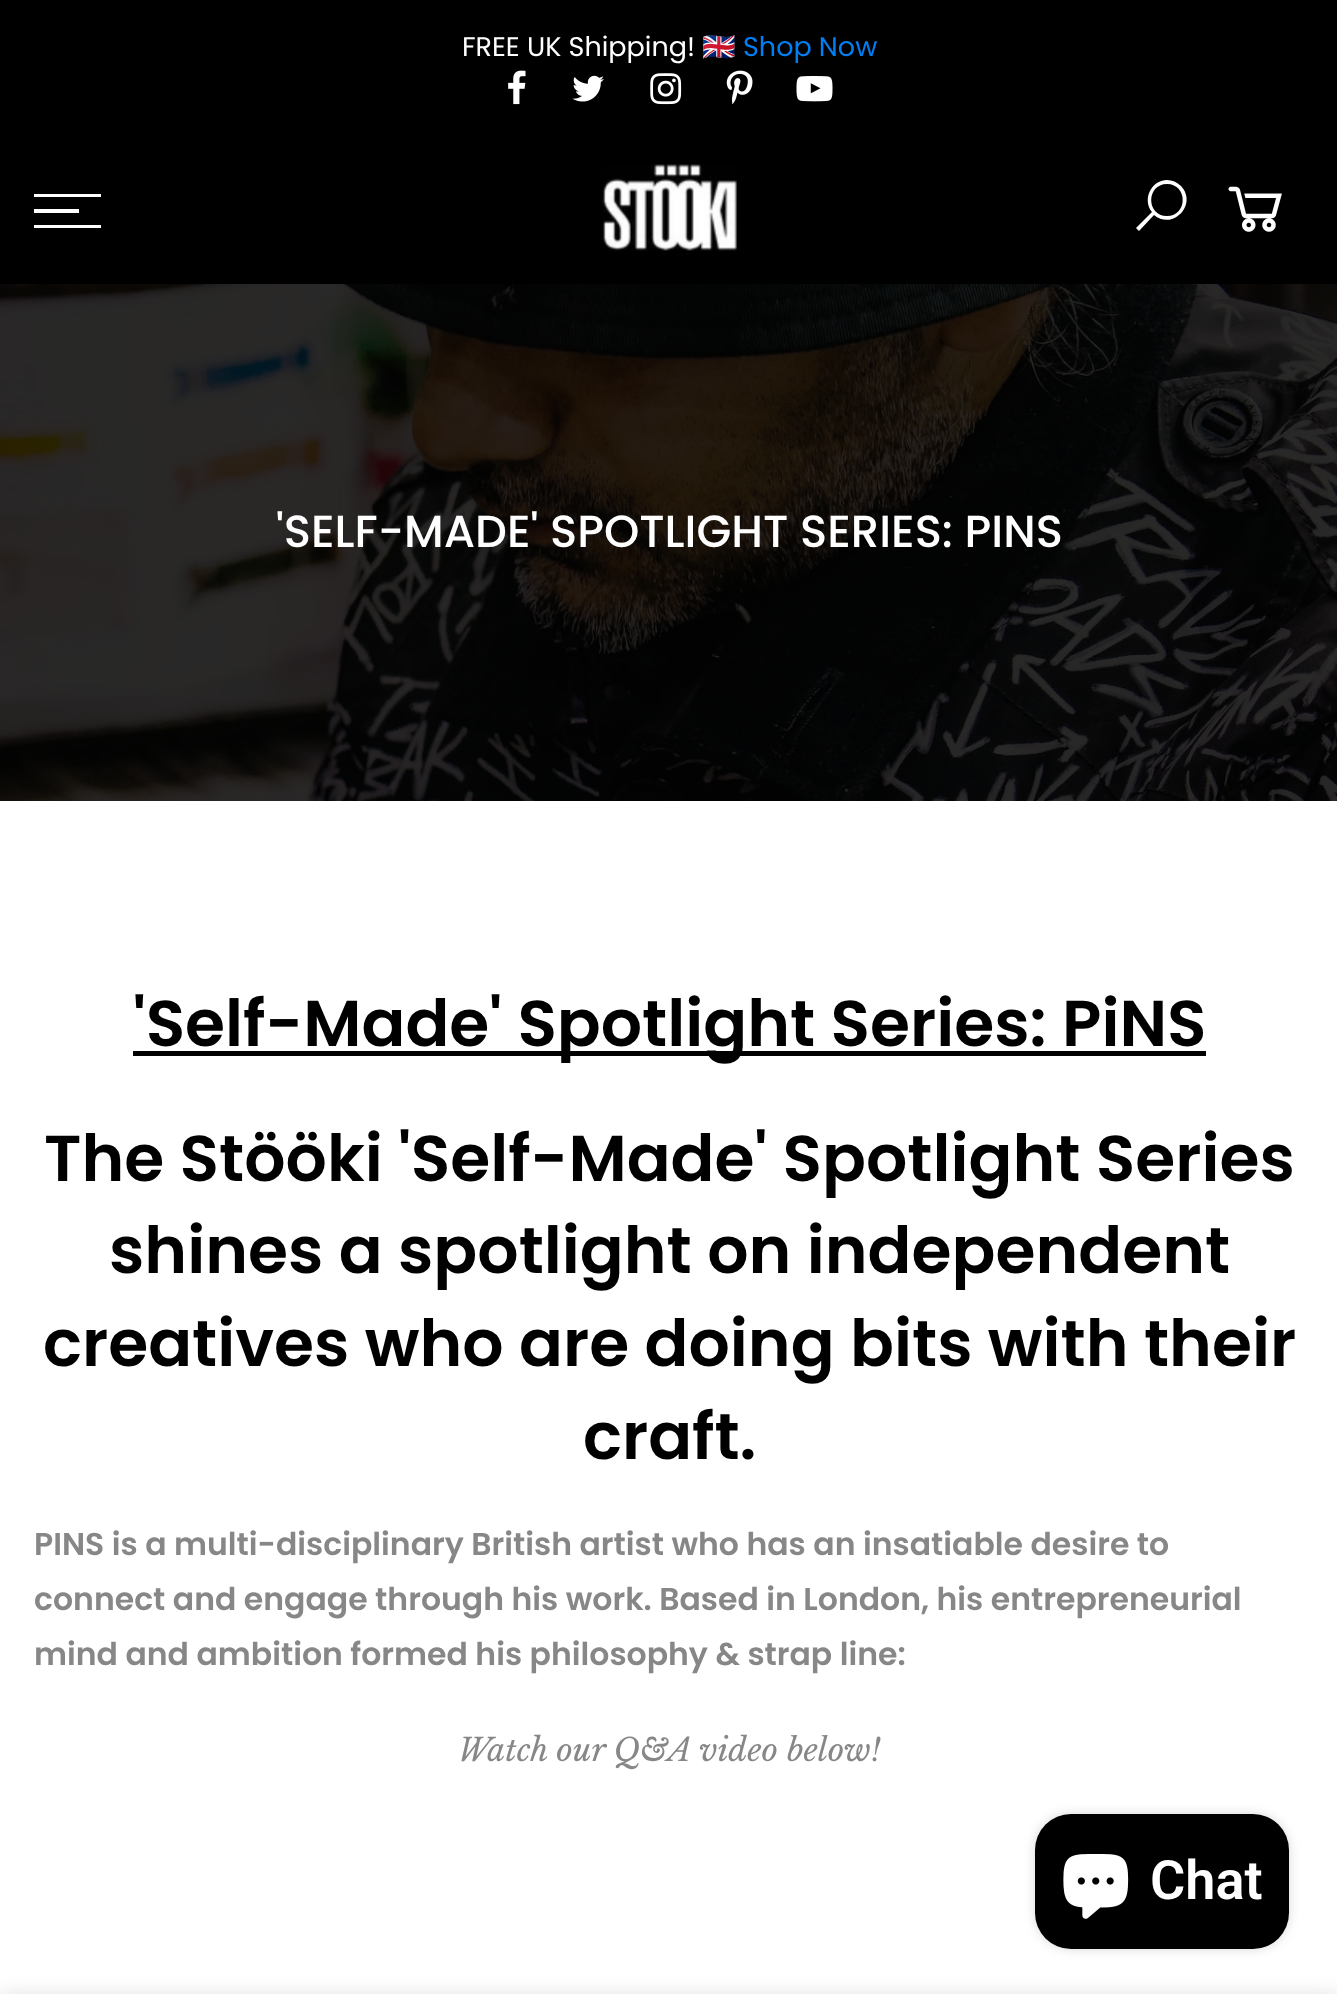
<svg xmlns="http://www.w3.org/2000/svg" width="1337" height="1994">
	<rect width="100%" height="100%" fill="#FFFFFF" />
	<rect x="0" y="0" width="1337" height="284" fill="#000000" />
	<text x="462" y="56" font-family="Poppins" font-size="27" fill="#FFFFFF">FREE UK Shipping!</text>
	<text x="702" y="56" font-family="Noto Color Emoji" font-size="27" fill="#FFFFFF">🇬🇧</text>
	<text x="743" y="56" font-family="Poppins" font-size="27" fill="#007FF4">Shop Now</text>
	<image x="508" y="70" width="18" height="35" href="assets/img1.png" />
	<image x="572" y="75" width="32" height="27" href="assets/img2.png" />
	<image x="650" y="73" width="32" height="32" href="assets/img3.png" />
	<image x="726" y="70" width="27" height="34" href="assets/img4.png" />
	<image x="796" y="76" width="37" height="26" href="assets/img5.png" />
	<rect x="34" y="194" width="67" height="3" fill="#FFFFFF" />
	<rect x="34" y="209" width="45" height="4" fill="#FFFFFF" />
	<rect x="34" y="225" width="67" height="3" fill="#FFFFFF" />
	<image x="602" y="164" width="135" height="87" href="assets/img6.png" />
	<path d="M1167 180C1151 180 1142 200 1152 212L1136 228L1139 231L1154 215C1173 231 1198 204 1181 186C1177 182 1172 180 1167 180ZM1167 184C1188 184 1188 216 1167 216C1146 216 1146 184 1167 184Z" fill="#FFFFFF" />
	<image x="1228" y="186" width="54" height="46" href="assets/img7.png" />
	<image x="0" y="284" width="1337" height="517" href="assets/img8.png" />
	<text x="276" y="547" font-family="Poppins" font-size="45" font-weight="500" fill="#FFFFFF">'SELF-MADE' SPOTLIGHT SERIES: PINS</text>
	<rect x="133" y="1051" width="1073" height="5" fill="#000000" />
	<g font-family="Poppins" font-size="64.8" font-weight="600" fill="#000000">
		<text x="133" y="1046">'Self-Made' Spotlight Series: PiNS</text>
		<text x="44" y="1181">The Stööki 'Self-Made' Spotlight Series</text>
		<text x="109" y="1273">shines a spotlight on independent</text>
		<text x="43" y="1366">creatives who are doing bits with their</text>
		<text x="583" y="1459">craft.</text>
	</g>
	<g font-family="Poppins" font-size="31.5" font-weight="600" fill="#878787">
		<text x="34" y="1555">PINS is a multi-disciplinary British artist who has an insatiable desire to</text>
		<text x="34" y="1610">connect and engage through his work. Based in London, his entrepreneurial</text>
		<text x="34" y="1665">mind and ambition formed his philosophy &amp; strap line:</text>
	</g>
	<text x="458" y="1761" font-family="Libre Baskerville" font-size="31.5" font-style="italic" fill="#878787">Watch our Q&amp;A video below!</text>
	<rect x="1035" y="1814" width="254" height="135" rx="36" fill="#000000" fill-opacity="0.15" filter="blur(5.5px)" />
	<rect x="1035" y="1814" width="254" height="135" rx="36" fill="#000000" />
	<image x="1063" y="1854" width="66" height="65" href="assets/img9.png" />
	<text x="1150" y="1899" font-family="Roboto" font-size="54" font-weight="600" fill="#FFFFFF">Chat</text>
	<rect x="0" y="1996" width="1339" height="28" fill="#000000" fill-opacity="0.14" filter="blur(10px)" />
</svg>
